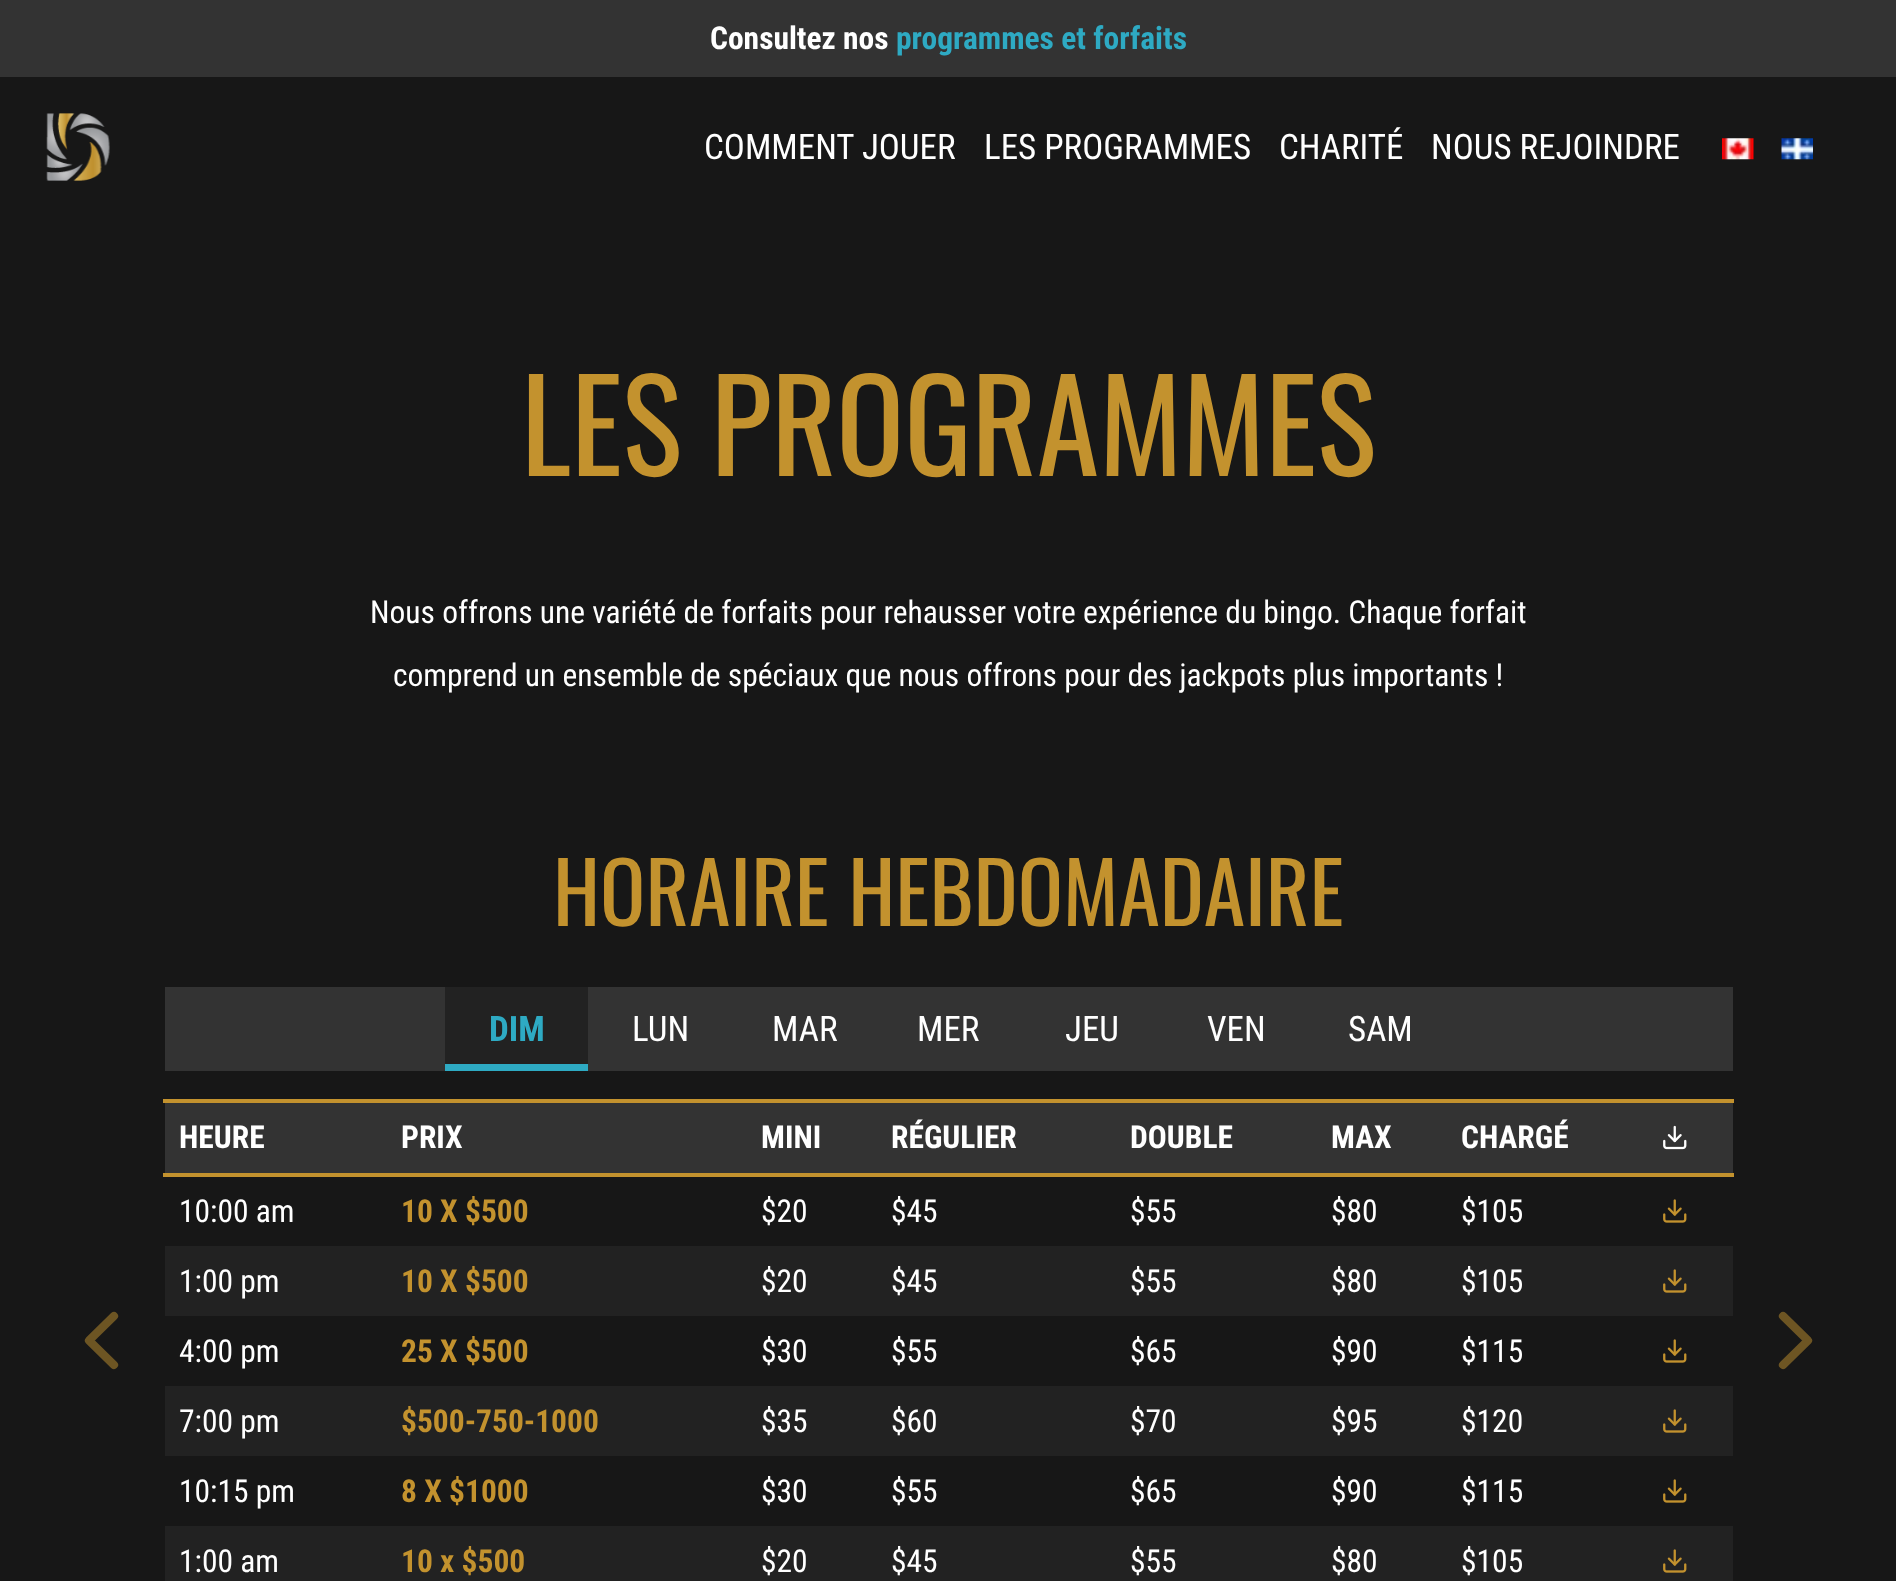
<svg xmlns="http://www.w3.org/2000/svg" width="1896" height="1581">
	<rect width="100%" height="100%" fill="#171717" />
	<rect x="0" y="0" width="1896" height="77" fill="#333333" />
	<text x="710" y="49" font-family="Roboto Condensed" font-size="31.5" font-weight="700" fill="#FFFFFF">Consultez nos</text>
	<text x="896" y="49" font-family="Roboto Condensed" font-size="31.5" font-weight="700" fill="#2EAAC3">programmes et forfaits</text>
	<image x="46" y="113" width="64" height="68" href="assets/img1.png" />
	<g font-family="Roboto Condensed" font-size="35" fill="#FFFFFF">
		<text x="704" y="159">COMMENT JOUER</text>
		<text x="984" y="159">LES PROGRAMMES</text>
		<text x="1279" y="159">CHARITÉ</text>
		<text x="1431" y="159">NOUS REJOINDRE</text>
	</g>
	<image x="1722" y="138" width="32" height="22" href="assets/img2.png" />
	<image x="1781" y="138" width="32" height="22" href="assets/img3.png" />
	<text x="521" y="476" font-family="Oswald" font-size="126" fill="#C3922E">LES PROGRAMMES</text>
	<g font-family="Roboto Condensed" font-size="31.5" fill="#FFFFFF">
		<text x="370" y="623">Nous offrons une variété de forfaits pour rehausser votre expérience du bingo. Chaque forfait</text>
		<text x="393" y="686">comprend un ensemble de spéciaux que nous offrons pour des jackpots plus importants !</text>
	</g>
	<text x="553" y="926" font-family="Oswald" font-size="84" fill="#C3922E">HORAIRE HEBDOMADAIRE</text>
	<rect x="165" y="987" width="1568" height="84" fill="#333333" />
	<rect x="445" y="987" width="143" height="77" fill="#222222" />
	<text x="489" y="1041" font-family="Roboto Condensed" font-size="35" font-weight="700" fill="#2EAAC3">DIM</text>
	<rect x="445" y="1064" width="143" height="7" fill="#2EAAC3" />
	<g font-family="Roboto Condensed" font-size="35" fill="#FFFFFF">
		<text x="632" y="1041">LUN</text>
		<text x="772" y="1041">MAR</text>
		<text x="917" y="1041">MER</text>
		<text x="1065" y="1041">JEU</text>
		<text x="1207" y="1041">VEN</text>
		<text x="1348" y="1041">SAM</text>
	</g>
	<path d="M114 1365L89 1340.5L114 1316" fill="none" stroke="#6D5523" stroke-width="8.2" stroke-linecap="round" stroke-linejoin="round" />
	<rect x="163" y="1099" width="1571" height="4" fill="#C3922E" />
	<rect x="163" y="1173" width="1571" height="4" fill="#C3922E" />
	<rect x="165" y="1103" width="1568" height="70" fill="#333333" />
	<g font-family="Roboto Condensed" font-size="31.5" font-weight="700" fill="#FFFFFF">
		<text x="179" y="1148">HEURE</text>
		<text x="401" y="1148">PRIX</text>
		<text x="761" y="1148">MINI</text>
		<text x="891" y="1148">RÉGULIER</text>
		<text x="1130" y="1148">DOUBLE</text>
		<text x="1331" y="1148">MAX</text>
		<text x="1461" y="1148">CHARGÉ</text>
	</g>
	<image x="1663" y="1125" width="24" height="25" href="assets/img4.png" />
	<text x="179" y="1222" font-family="Roboto Condensed" font-size="31.5" fill="#FFFFFF">10:00 am</text>
	<text x="401" y="1222" font-family="Roboto Condensed" font-size="31.5" font-weight="700" fill="#C3922E">10 X $500</text>
	<g font-family="Roboto Condensed" font-size="31.5" fill="#FFFFFF">
		<text x="761" y="1222">$20</text>
		<text x="891" y="1222">$45</text>
		<text x="1130" y="1222">$55</text>
		<text x="1331" y="1222">$80</text>
		<text x="1461" y="1222">$105</text>
	</g>
	<image x="1663" y="1199" width="24" height="24" href="assets/img5.png" />
	<rect x="165" y="1246" width="1568" height="70" fill="#222222" />
	<text x="179" y="1292" font-family="Roboto Condensed" font-size="31.5" fill="#FFFFFF">1:00 pm</text>
	<text x="401" y="1292" font-family="Roboto Condensed" font-size="31.5" font-weight="700" fill="#C3922E">10 X $500</text>
	<g font-family="Roboto Condensed" font-size="31.5" fill="#FFFFFF">
		<text x="761" y="1292">$20</text>
		<text x="891" y="1292">$45</text>
		<text x="1130" y="1292">$55</text>
		<text x="1331" y="1292">$80</text>
		<text x="1461" y="1292">$105</text>
	</g>
	<image x="1663" y="1269" width="24" height="24" href="assets/img6.png" />
	<text x="179" y="1362" font-family="Roboto Condensed" font-size="31.5" fill="#FFFFFF">4:00 pm</text>
	<text x="401" y="1362" font-family="Roboto Condensed" font-size="31.5" font-weight="700" fill="#C3922E">25 X $500</text>
	<g font-family="Roboto Condensed" font-size="31.5" fill="#FFFFFF">
		<text x="761" y="1362">$30</text>
		<text x="891" y="1362">$55</text>
		<text x="1130" y="1362">$65</text>
		<text x="1331" y="1362">$90</text>
		<text x="1461" y="1362">$115</text>
	</g>
	<image x="1663" y="1339" width="24" height="24" href="assets/img5.png" />
	<rect x="165" y="1386" width="1568" height="70" fill="#222222" />
	<text x="179" y="1432" font-family="Roboto Condensed" font-size="31.5" fill="#FFFFFF">7:00 pm</text>
	<text x="401" y="1432" font-family="Roboto Condensed" font-size="31.5" font-weight="700" fill="#C3922E">$500-750-1000</text>
	<g font-family="Roboto Condensed" font-size="31.5" fill="#FFFFFF">
		<text x="761" y="1432">$35</text>
		<text x="891" y="1432">$60</text>
		<text x="1130" y="1432">$70</text>
		<text x="1331" y="1432">$95</text>
		<text x="1461" y="1432">$120</text>
	</g>
	<image x="1663" y="1409" width="24" height="24" href="assets/img6.png" />
	<text x="179" y="1502" font-family="Roboto Condensed" font-size="31.5" fill="#FFFFFF">10:15 pm</text>
	<text x="401" y="1502" font-family="Roboto Condensed" font-size="31.5" font-weight="700" fill="#C3922E">8 X $1000</text>
	<g font-family="Roboto Condensed" font-size="31.5" fill="#FFFFFF">
		<text x="761" y="1502">$30</text>
		<text x="891" y="1502">$55</text>
		<text x="1130" y="1502">$65</text>
		<text x="1331" y="1502">$90</text>
		<text x="1461" y="1502">$115</text>
	</g>
	<image x="1663" y="1479" width="24" height="24" href="assets/img5.png" />
	<rect x="165" y="1526" width="1568" height="55" fill="#222222" />
	<text x="179" y="1572" font-family="Roboto Condensed" font-size="31.5" fill="#FFFFFF">1:00 am</text>
	<text x="401" y="1572" font-family="Roboto Condensed" font-size="31.5" font-weight="700" fill="#C3922E">10 x $500</text>
	<g font-family="Roboto Condensed" font-size="31.5" fill="#FFFFFF">
		<text x="761" y="1572">$20</text>
		<text x="891" y="1572">$45</text>
		<text x="1130" y="1572">$55</text>
		<text x="1331" y="1572">$80</text>
		<text x="1461" y="1572">$105</text>
	</g>
	<image x="1663" y="1549" width="24" height="24" href="assets/img6.png" />
	<path d="M1783 1365L1808 1340.5L1783 1316" fill="none" stroke="#6D5523" stroke-width="8.2" stroke-linecap="round" stroke-linejoin="round" />
</svg>
